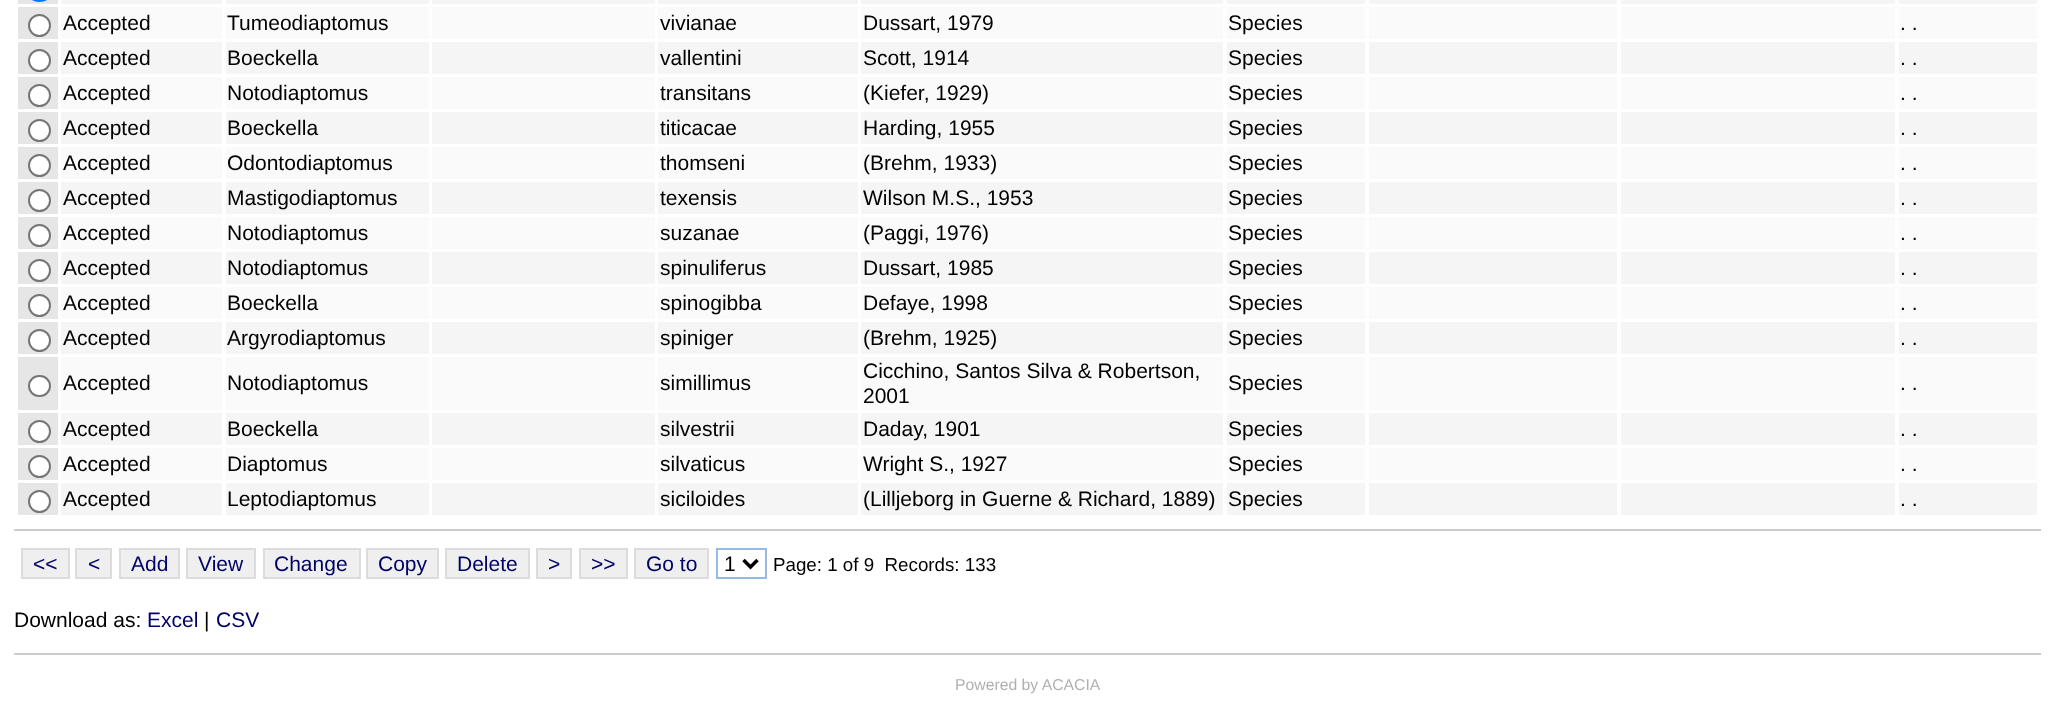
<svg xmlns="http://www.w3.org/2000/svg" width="2054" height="714">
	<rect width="100%" height="100%" fill="#FFFFFF" />
	<rect x="18" y="0" width="40" height="4" fill="#E6E6E6" />
	<rect x="29" y="-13" width="21" height="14" rx="10.5" fill="none" stroke="#0075FF" stroke-width="2" />
	<rect x="61" y="0" width="161" height="4" fill="#F5F5F5" />
	<rect x="226" y="0" width="203" height="4" fill="#F5F5F5" />
	<rect x="432" y="0" width="223" height="4" fill="#F5F5F5" />
	<rect x="658" y="0" width="200" height="4" fill="#F5F5F5" />
	<rect x="861" y="0" width="362" height="4" fill="#F5F5F5" />
	<rect x="1227" y="0" width="138" height="4" fill="#F5F5F5" />
	<rect x="1369" y="0" width="248" height="4" fill="#F5F5F5" />
	<rect x="1621" y="0" width="274" height="4" fill="#F5F5F5" />
	<rect x="1899" y="0" width="138" height="4" fill="#F5F5F5" />
	<rect x="18" y="7" width="40" height="32" fill="#E6E6E6" />
	<circle cx="39.5" cy="25.5" r="10.5" fill="#FFFFFF" stroke="#767676" stroke-width="2" />
	<rect x="61" y="7" width="161" height="32" fill="#FAFAFA" />
	<text x="63" y="30" font-family="Liberation Sans" font-size="21" fill="#000000">Accepted</text>
	<rect x="226" y="7" width="203" height="32" fill="#FAFAFA" />
	<text x="227" y="30" font-family="Liberation Sans" font-size="21" fill="#000000">Tumeodiaptomus</text>
	<rect x="432" y="7" width="223" height="32" fill="#FAFAFA" />
	<rect x="658" y="7" width="200" height="32" fill="#FAFAFA" />
	<text x="660" y="30" font-family="Liberation Sans" font-size="21" fill="#000000">vivianae</text>
	<rect x="861" y="7" width="362" height="32" fill="#FAFAFA" />
	<text x="863" y="30" font-family="Liberation Sans" font-size="21" fill="#000000">Dussart, 1979</text>
	<rect x="1227" y="7" width="138" height="32" fill="#FAFAFA" />
	<text x="1228" y="30" font-family="Liberation Sans" font-size="21" fill="#000000">Species</text>
	<rect x="1369" y="7" width="248" height="32" fill="#FAFAFA" />
	<rect x="1621" y="7" width="274" height="32" fill="#FAFAFA" />
	<rect x="1899" y="7" width="138" height="32" fill="#FAFAFA" />
	<text x="1900" y="30" font-family="Liberation Sans" font-size="21" fill="#000000">. .</text>
	<rect x="18" y="42" width="40" height="32" fill="#E6E6E6" />
	<circle cx="39.5" cy="60.5" r="10.5" fill="#FFFFFF" stroke="#767676" stroke-width="2" />
	<rect x="61" y="42" width="161" height="32" fill="#F5F5F5" />
	<text x="63" y="65" font-family="Liberation Sans" font-size="21" fill="#000000">Accepted</text>
	<rect x="226" y="42" width="203" height="32" fill="#F5F5F5" />
	<text x="227" y="65" font-family="Liberation Sans" font-size="21" fill="#000000">Boeckella</text>
	<rect x="432" y="42" width="223" height="32" fill="#F5F5F5" />
	<rect x="658" y="42" width="200" height="32" fill="#F5F5F5" />
	<text x="660" y="65" font-family="Liberation Sans" font-size="21" fill="#000000">vallentini</text>
	<rect x="861" y="42" width="362" height="32" fill="#F5F5F5" />
	<text x="863" y="65" font-family="Liberation Sans" font-size="21" fill="#000000">Scott, 1914</text>
	<rect x="1227" y="42" width="138" height="32" fill="#F5F5F5" />
	<text x="1228" y="65" font-family="Liberation Sans" font-size="21" fill="#000000">Species</text>
	<rect x="1369" y="42" width="248" height="32" fill="#F5F5F5" />
	<rect x="1621" y="42" width="274" height="32" fill="#F5F5F5" />
	<rect x="1899" y="42" width="138" height="32" fill="#F5F5F5" />
	<text x="1900" y="65" font-family="Liberation Sans" font-size="21" fill="#000000">. .</text>
	<rect x="18" y="77" width="40" height="32" fill="#E6E6E6" />
	<circle cx="39.5" cy="95.5" r="10.5" fill="#FFFFFF" stroke="#767676" stroke-width="2" />
	<rect x="61" y="77" width="161" height="32" fill="#FAFAFA" />
	<text x="63" y="100" font-family="Liberation Sans" font-size="21" fill="#000000">Accepted</text>
	<rect x="226" y="77" width="203" height="32" fill="#FAFAFA" />
	<text x="227" y="100" font-family="Liberation Sans" font-size="21" fill="#000000">Notodiaptomus</text>
	<rect x="432" y="77" width="223" height="32" fill="#FAFAFA" />
	<rect x="658" y="77" width="200" height="32" fill="#FAFAFA" />
	<text x="660" y="100" font-family="Liberation Sans" font-size="21" fill="#000000">transitans</text>
	<rect x="861" y="77" width="362" height="32" fill="#FAFAFA" />
	<text x="863" y="100" font-family="Liberation Sans" font-size="21" fill="#000000">(Kiefer, 1929)</text>
	<rect x="1227" y="77" width="138" height="32" fill="#FAFAFA" />
	<text x="1228" y="100" font-family="Liberation Sans" font-size="21" fill="#000000">Species</text>
	<rect x="1369" y="77" width="248" height="32" fill="#FAFAFA" />
	<rect x="1621" y="77" width="274" height="32" fill="#FAFAFA" />
	<rect x="1899" y="77" width="138" height="32" fill="#FAFAFA" />
	<text x="1900" y="100" font-family="Liberation Sans" font-size="21" fill="#000000">. .</text>
	<rect x="18" y="112" width="40" height="32" fill="#E6E6E6" />
	<circle cx="39.5" cy="130.5" r="10.5" fill="#FFFFFF" stroke="#767676" stroke-width="2" />
	<rect x="61" y="112" width="161" height="32" fill="#F5F5F5" />
	<text x="63" y="135" font-family="Liberation Sans" font-size="21" fill="#000000">Accepted</text>
	<rect x="226" y="112" width="203" height="32" fill="#F5F5F5" />
	<text x="227" y="135" font-family="Liberation Sans" font-size="21" fill="#000000">Boeckella</text>
	<rect x="432" y="112" width="223" height="32" fill="#F5F5F5" />
	<rect x="658" y="112" width="200" height="32" fill="#F5F5F5" />
	<text x="660" y="135" font-family="Liberation Sans" font-size="21" fill="#000000">titicacae</text>
	<rect x="861" y="112" width="362" height="32" fill="#F5F5F5" />
	<text x="863" y="135" font-family="Liberation Sans" font-size="21" fill="#000000">Harding, 1955</text>
	<rect x="1227" y="112" width="138" height="32" fill="#F5F5F5" />
	<text x="1228" y="135" font-family="Liberation Sans" font-size="21" fill="#000000">Species</text>
	<rect x="1369" y="112" width="248" height="32" fill="#F5F5F5" />
	<rect x="1621" y="112" width="274" height="32" fill="#F5F5F5" />
	<rect x="1899" y="112" width="138" height="32" fill="#F5F5F5" />
	<text x="1900" y="135" font-family="Liberation Sans" font-size="21" fill="#000000">. .</text>
	<rect x="18" y="147" width="40" height="32" fill="#E6E6E6" />
	<circle cx="39.5" cy="165.5" r="10.5" fill="#FFFFFF" stroke="#767676" stroke-width="2" />
	<rect x="61" y="147" width="161" height="32" fill="#FAFAFA" />
	<text x="63" y="170" font-family="Liberation Sans" font-size="21" fill="#000000">Accepted</text>
	<rect x="226" y="147" width="203" height="32" fill="#FAFAFA" />
	<text x="227" y="170" font-family="Liberation Sans" font-size="21" fill="#000000">Odontodiaptomus</text>
	<rect x="432" y="147" width="223" height="32" fill="#FAFAFA" />
	<rect x="658" y="147" width="200" height="32" fill="#FAFAFA" />
	<text x="660" y="170" font-family="Liberation Sans" font-size="21" fill="#000000">thomseni</text>
	<rect x="861" y="147" width="362" height="32" fill="#FAFAFA" />
	<text x="863" y="170" font-family="Liberation Sans" font-size="21" fill="#000000">(Brehm, 1933)</text>
	<rect x="1227" y="147" width="138" height="32" fill="#FAFAFA" />
	<text x="1228" y="170" font-family="Liberation Sans" font-size="21" fill="#000000">Species</text>
	<rect x="1369" y="147" width="248" height="32" fill="#FAFAFA" />
	<rect x="1621" y="147" width="274" height="32" fill="#FAFAFA" />
	<rect x="1899" y="147" width="138" height="32" fill="#FAFAFA" />
	<text x="1900" y="170" font-family="Liberation Sans" font-size="21" fill="#000000">. .</text>
	<rect x="18" y="182" width="40" height="32" fill="#E6E6E6" />
	<circle cx="39.5" cy="200.5" r="10.5" fill="#FFFFFF" stroke="#767676" stroke-width="2" />
	<rect x="61" y="182" width="161" height="32" fill="#F5F5F5" />
	<text x="63" y="205" font-family="Liberation Sans" font-size="21" fill="#000000">Accepted</text>
	<rect x="226" y="182" width="203" height="32" fill="#F5F5F5" />
	<text x="227" y="205" font-family="Liberation Sans" font-size="21" fill="#000000">Mastigodiaptomus</text>
	<rect x="432" y="182" width="223" height="32" fill="#F5F5F5" />
	<rect x="658" y="182" width="200" height="32" fill="#F5F5F5" />
	<text x="660" y="205" font-family="Liberation Sans" font-size="21" fill="#000000">texensis</text>
	<rect x="861" y="182" width="362" height="32" fill="#F5F5F5" />
	<text x="863" y="205" font-family="Liberation Sans" font-size="21" fill="#000000">Wilson M.S., 1953</text>
	<rect x="1227" y="182" width="138" height="32" fill="#F5F5F5" />
	<text x="1228" y="205" font-family="Liberation Sans" font-size="21" fill="#000000">Species</text>
	<rect x="1369" y="182" width="248" height="32" fill="#F5F5F5" />
	<rect x="1621" y="182" width="274" height="32" fill="#F5F5F5" />
	<rect x="1899" y="182" width="138" height="32" fill="#F5F5F5" />
	<text x="1900" y="205" font-family="Liberation Sans" font-size="21" fill="#000000">. .</text>
	<rect x="18" y="217" width="40" height="32" fill="#E6E6E6" />
	<circle cx="39.5" cy="235.5" r="10.5" fill="#FFFFFF" stroke="#767676" stroke-width="2" />
	<rect x="61" y="217" width="161" height="32" fill="#FAFAFA" />
	<text x="63" y="240" font-family="Liberation Sans" font-size="21" fill="#000000">Accepted</text>
	<rect x="226" y="217" width="203" height="32" fill="#FAFAFA" />
	<text x="227" y="240" font-family="Liberation Sans" font-size="21" fill="#000000">Notodiaptomus</text>
	<rect x="432" y="217" width="223" height="32" fill="#FAFAFA" />
	<rect x="658" y="217" width="200" height="32" fill="#FAFAFA" />
	<text x="660" y="240" font-family="Liberation Sans" font-size="21" fill="#000000">suzanae</text>
	<rect x="861" y="217" width="362" height="32" fill="#FAFAFA" />
	<text x="863" y="240" font-family="Liberation Sans" font-size="21" fill="#000000">(Paggi, 1976)</text>
	<rect x="1227" y="217" width="138" height="32" fill="#FAFAFA" />
	<text x="1228" y="240" font-family="Liberation Sans" font-size="21" fill="#000000">Species</text>
	<rect x="1369" y="217" width="248" height="32" fill="#FAFAFA" />
	<rect x="1621" y="217" width="274" height="32" fill="#FAFAFA" />
	<rect x="1899" y="217" width="138" height="32" fill="#FAFAFA" />
	<text x="1900" y="240" font-family="Liberation Sans" font-size="21" fill="#000000">. .</text>
	<rect x="18" y="252" width="40" height="32" fill="#E6E6E6" />
	<circle cx="39.5" cy="270.5" r="10.5" fill="#FFFFFF" stroke="#767676" stroke-width="2" />
	<rect x="61" y="252" width="161" height="32" fill="#F5F5F5" />
	<text x="63" y="275" font-family="Liberation Sans" font-size="21" fill="#000000">Accepted</text>
	<rect x="226" y="252" width="203" height="32" fill="#F5F5F5" />
	<text x="227" y="275" font-family="Liberation Sans" font-size="21" fill="#000000">Notodiaptomus</text>
	<rect x="432" y="252" width="223" height="32" fill="#F5F5F5" />
	<rect x="658" y="252" width="200" height="32" fill="#F5F5F5" />
	<text x="660" y="275" font-family="Liberation Sans" font-size="21" fill="#000000">spinuliferus</text>
	<rect x="861" y="252" width="362" height="32" fill="#F5F5F5" />
	<text x="863" y="275" font-family="Liberation Sans" font-size="21" fill="#000000">Dussart, 1985</text>
	<rect x="1227" y="252" width="138" height="32" fill="#F5F5F5" />
	<text x="1228" y="275" font-family="Liberation Sans" font-size="21" fill="#000000">Species</text>
	<rect x="1369" y="252" width="248" height="32" fill="#F5F5F5" />
	<rect x="1621" y="252" width="274" height="32" fill="#F5F5F5" />
	<rect x="1899" y="252" width="138" height="32" fill="#F5F5F5" />
	<text x="1900" y="275" font-family="Liberation Sans" font-size="21" fill="#000000">. .</text>
	<rect x="18" y="287" width="40" height="32" fill="#E6E6E6" />
	<circle cx="39.5" cy="305.5" r="10.5" fill="#FFFFFF" stroke="#767676" stroke-width="2" />
	<rect x="61" y="287" width="161" height="32" fill="#FAFAFA" />
	<text x="63" y="310" font-family="Liberation Sans" font-size="21" fill="#000000">Accepted</text>
	<rect x="226" y="287" width="203" height="32" fill="#FAFAFA" />
	<text x="227" y="310" font-family="Liberation Sans" font-size="21" fill="#000000">Boeckella</text>
	<rect x="432" y="287" width="223" height="32" fill="#FAFAFA" />
	<rect x="658" y="287" width="200" height="32" fill="#FAFAFA" />
	<text x="660" y="310" font-family="Liberation Sans" font-size="21" fill="#000000">spinogibba</text>
	<rect x="861" y="287" width="362" height="32" fill="#FAFAFA" />
	<text x="863" y="310" font-family="Liberation Sans" font-size="21" fill="#000000">Defaye, 1998</text>
	<rect x="1227" y="287" width="138" height="32" fill="#FAFAFA" />
	<text x="1228" y="310" font-family="Liberation Sans" font-size="21" fill="#000000">Species</text>
	<rect x="1369" y="287" width="248" height="32" fill="#FAFAFA" />
	<rect x="1621" y="287" width="274" height="32" fill="#FAFAFA" />
	<rect x="1899" y="287" width="138" height="32" fill="#FAFAFA" />
	<text x="1900" y="310" font-family="Liberation Sans" font-size="21" fill="#000000">. .</text>
	<rect x="18" y="322" width="40" height="32" fill="#E6E6E6" />
	<circle cx="39.5" cy="340.5" r="10.5" fill="#FFFFFF" stroke="#767676" stroke-width="2" />
	<rect x="61" y="322" width="161" height="32" fill="#F5F5F5" />
	<text x="63" y="345" font-family="Liberation Sans" font-size="21" fill="#000000">Accepted</text>
	<rect x="226" y="322" width="203" height="32" fill="#F5F5F5" />
	<text x="227" y="345" font-family="Liberation Sans" font-size="21" fill="#000000">Argyrodiaptomus</text>
	<rect x="432" y="322" width="223" height="32" fill="#F5F5F5" />
	<rect x="658" y="322" width="200" height="32" fill="#F5F5F5" />
	<text x="660" y="345" font-family="Liberation Sans" font-size="21" fill="#000000">spiniger</text>
	<rect x="861" y="322" width="362" height="32" fill="#F5F5F5" />
	<text x="863" y="345" font-family="Liberation Sans" font-size="21" fill="#000000">(Brehm, 1925)</text>
	<rect x="1227" y="322" width="138" height="32" fill="#F5F5F5" />
	<text x="1228" y="345" font-family="Liberation Sans" font-size="21" fill="#000000">Species</text>
	<rect x="1369" y="322" width="248" height="32" fill="#F5F5F5" />
	<rect x="1621" y="322" width="274" height="32" fill="#F5F5F5" />
	<rect x="1899" y="322" width="138" height="32" fill="#F5F5F5" />
	<text x="1900" y="345" font-family="Liberation Sans" font-size="21" fill="#000000">. .</text>
	<rect x="18" y="357" width="40" height="53" fill="#E6E6E6" />
	<rect x="29" y="376" width="21" height="20" rx="10" fill="#FFFFFF" stroke="#767676" stroke-width="2" />
	<rect x="61" y="357" width="161" height="53" fill="#FAFAFA" />
	<text x="63" y="390" font-family="Liberation Sans" font-size="21" fill="#000000">Accepted</text>
	<rect x="226" y="357" width="203" height="53" fill="#FAFAFA" />
	<text x="227" y="390" font-family="Liberation Sans" font-size="21" fill="#000000">Notodiaptomus</text>
	<rect x="432" y="357" width="223" height="53" fill="#FAFAFA" />
	<rect x="658" y="357" width="200" height="53" fill="#FAFAFA" />
	<text x="660" y="390" font-family="Liberation Sans" font-size="21" fill="#000000">simillimus</text>
	<rect x="861" y="357" width="362" height="53" fill="#FAFAFA" />
	<g font-family="Liberation Sans" font-size="21" fill="#000000">
		<text x="863" y="378">Cicchino, Santos Silva &amp; Robertson,</text>
		<text x="863" y="403">2001</text>
	</g>
	<rect x="1227" y="357" width="138" height="53" fill="#FAFAFA" />
	<text x="1228" y="390" font-family="Liberation Sans" font-size="21" fill="#000000">Species</text>
	<rect x="1369" y="357" width="248" height="53" fill="#FAFAFA" />
	<rect x="1621" y="357" width="274" height="53" fill="#FAFAFA" />
	<rect x="1899" y="357" width="138" height="53" fill="#FAFAFA" />
	<text x="1900" y="390" font-family="Liberation Sans" font-size="21" fill="#000000">. .</text>
	<rect x="18" y="413" width="40" height="32" fill="#E6E6E6" />
	<circle cx="39.5" cy="431.5" r="10.5" fill="#FFFFFF" stroke="#767676" stroke-width="2" />
	<rect x="61" y="413" width="161" height="32" fill="#F5F5F5" />
	<text x="63" y="436" font-family="Liberation Sans" font-size="21" fill="#000000">Accepted</text>
	<rect x="226" y="413" width="203" height="32" fill="#F5F5F5" />
	<text x="227" y="436" font-family="Liberation Sans" font-size="21" fill="#000000">Boeckella</text>
	<rect x="432" y="413" width="223" height="32" fill="#F5F5F5" />
	<rect x="658" y="413" width="200" height="32" fill="#F5F5F5" />
	<text x="660" y="436" font-family="Liberation Sans" font-size="21" fill="#000000">silvestrii</text>
	<rect x="861" y="413" width="362" height="32" fill="#F5F5F5" />
	<text x="863" y="436" font-family="Liberation Sans" font-size="21" fill="#000000">Daday, 1901</text>
	<rect x="1227" y="413" width="138" height="32" fill="#F5F5F5" />
	<text x="1228" y="436" font-family="Liberation Sans" font-size="21" fill="#000000">Species</text>
	<rect x="1369" y="413" width="248" height="32" fill="#F5F5F5" />
	<rect x="1621" y="413" width="274" height="32" fill="#F5F5F5" />
	<rect x="1899" y="413" width="138" height="32" fill="#F5F5F5" />
	<text x="1900" y="436" font-family="Liberation Sans" font-size="21" fill="#000000">. .</text>
	<rect x="18" y="448" width="40" height="32" fill="#E6E6E6" />
	<circle cx="39.5" cy="466.5" r="10.5" fill="#FFFFFF" stroke="#767676" stroke-width="2" />
	<rect x="61" y="448" width="161" height="32" fill="#FAFAFA" />
	<text x="63" y="471" font-family="Liberation Sans" font-size="21" fill="#000000">Accepted</text>
	<rect x="226" y="448" width="203" height="32" fill="#FAFAFA" />
	<text x="227" y="471" font-family="Liberation Sans" font-size="21" fill="#000000">Diaptomus</text>
	<rect x="432" y="448" width="223" height="32" fill="#FAFAFA" />
	<rect x="658" y="448" width="200" height="32" fill="#FAFAFA" />
	<text x="660" y="471" font-family="Liberation Sans" font-size="21" fill="#000000">silvaticus</text>
	<rect x="861" y="448" width="362" height="32" fill="#FAFAFA" />
	<text x="863" y="471" font-family="Liberation Sans" font-size="21" fill="#000000">Wright S., 1927</text>
	<rect x="1227" y="448" width="138" height="32" fill="#FAFAFA" />
	<text x="1228" y="471" font-family="Liberation Sans" font-size="21" fill="#000000">Species</text>
	<rect x="1369" y="448" width="248" height="32" fill="#FAFAFA" />
	<rect x="1621" y="448" width="274" height="32" fill="#FAFAFA" />
	<rect x="1899" y="448" width="138" height="32" fill="#FAFAFA" />
	<text x="1900" y="471" font-family="Liberation Sans" font-size="21" fill="#000000">. .</text>
	<rect x="18" y="483" width="40" height="32" fill="#E6E6E6" />
	<circle cx="39.5" cy="501.5" r="10.5" fill="#FFFFFF" stroke="#767676" stroke-width="2" />
	<rect x="61" y="483" width="161" height="32" fill="#F5F5F5" />
	<text x="63" y="506" font-family="Liberation Sans" font-size="21" fill="#000000">Accepted</text>
	<rect x="226" y="483" width="203" height="32" fill="#F5F5F5" />
	<text x="227" y="506" font-family="Liberation Sans" font-size="21" fill="#000000">Leptodiaptomus</text>
	<rect x="432" y="483" width="223" height="32" fill="#F5F5F5" />
	<rect x="658" y="483" width="200" height="32" fill="#F5F5F5" />
	<text x="660" y="506" font-family="Liberation Sans" font-size="21" fill="#000000">siciloides</text>
	<rect x="861" y="483" width="362" height="32" fill="#F5F5F5" />
	<text x="863" y="506" font-family="Liberation Sans" font-size="21" fill="#000000">(Lilljeborg in Guerne &amp; Richard, 1889)</text>
	<rect x="1227" y="483" width="138" height="32" fill="#F5F5F5" />
	<text x="1228" y="506" font-family="Liberation Sans" font-size="21" fill="#000000">Species</text>
	<rect x="1369" y="483" width="248" height="32" fill="#F5F5F5" />
	<rect x="1621" y="483" width="274" height="32" fill="#F5F5F5" />
	<rect x="1899" y="483" width="138" height="32" fill="#F5F5F5" />
	<text x="1900" y="506" font-family="Liberation Sans" font-size="21" fill="#000000">. .</text>
	<rect x="14" y="529" width="2027" height="2" fill="#CCCCCC" />
	<rect x="22" y="549" width="47" height="29" fill="#EFEFEF" stroke="#DCDCDC" stroke-width="2" />
	<text x="33" y="571" font-family="Liberation Sans" font-size="21" fill="#000066">&lt;&lt;</text>
	<rect x="76" y="549" width="35" height="29" fill="#EFEFEF" stroke="#DCDCDC" stroke-width="2" />
	<text x="88" y="571" font-family="Liberation Sans" font-size="21" fill="#000066">&lt;</text>
	<rect x="120" y="549" width="59" height="29" fill="#EFEFEF" stroke="#DCDCDC" stroke-width="2" />
	<text x="131" y="571" font-family="Liberation Sans" font-size="21" fill="#000066">Add</text>
	<rect x="187" y="549" width="68" height="29" fill="#EFEFEF" stroke="#DCDCDC" stroke-width="2" />
	<text x="198" y="571" font-family="Liberation Sans" font-size="21" fill="#000066">View</text>
	<rect x="264" y="549" width="96" height="29" fill="#EFEFEF" stroke="#DCDCDC" stroke-width="2" />
	<text x="274" y="571" font-family="Liberation Sans" font-size="21" fill="#000066">Change</text>
	<rect x="367" y="549" width="71" height="29" fill="#EFEFEF" stroke="#DCDCDC" stroke-width="2" />
	<text x="378" y="571" font-family="Liberation Sans" font-size="21" fill="#000066">Copy</text>
	<rect x="446" y="549" width="83" height="29" fill="#EFEFEF" stroke="#DCDCDC" stroke-width="2" />
	<text x="457" y="571" font-family="Liberation Sans" font-size="21" fill="#000066">Delete</text>
	<rect x="537" y="549" width="34" height="29" fill="#EFEFEF" stroke="#DCDCDC" stroke-width="2" />
	<text x="548" y="571" font-family="Liberation Sans" font-size="21" fill="#000066">&gt;</text>
	<rect x="580" y="549" width="47" height="29" fill="#EFEFEF" stroke="#DCDCDC" stroke-width="2" />
	<text x="591" y="571" font-family="Liberation Sans" font-size="21" fill="#000066">&gt;&gt;</text>
	<rect x="635" y="549" width="73" height="29" fill="#EFEFEF" stroke="#DCDCDC" stroke-width="2" />
	<text x="646" y="571" font-family="Liberation Sans" font-size="21" fill="#000066">Go to</text>
	<rect x="717" y="549" width="49" height="29" fill="none" stroke="#97B9E6" stroke-width="2" />
	<path d="M743.5 560L750.5 567L757.5 560" fill="none" stroke="#000000" stroke-width="3.5" />
	<text x="724" y="571" font-family="Liberation Sans" font-size="21" fill="#000000">1</text>
	<text x="773" y="571" font-family="Liberation Sans" font-size="18.75" fill="#000000" xml:space="preserve">Page: 1 of 9  Records: 133</text>
	<text x="14" y="627" font-family="Liberation Sans" font-size="21" fill="#000000">Download as:</text>
	<text x="147" y="627" font-family="Liberation Sans" font-size="21" fill="#000066">Excel</text>
	<text x="204" y="627" font-family="Liberation Sans" font-size="21" fill="#000000">|</text>
	<text x="216" y="627" font-family="Liberation Sans" font-size="21" fill="#000066">CSV</text>
	<rect x="14" y="653" width="2027" height="2" fill="#CCCCCC" />
	<text x="955" y="690" font-family="Liberation Sans" font-size="15.75" fill="#B0B0B0">Powered by ACACIA</text>
</svg>
